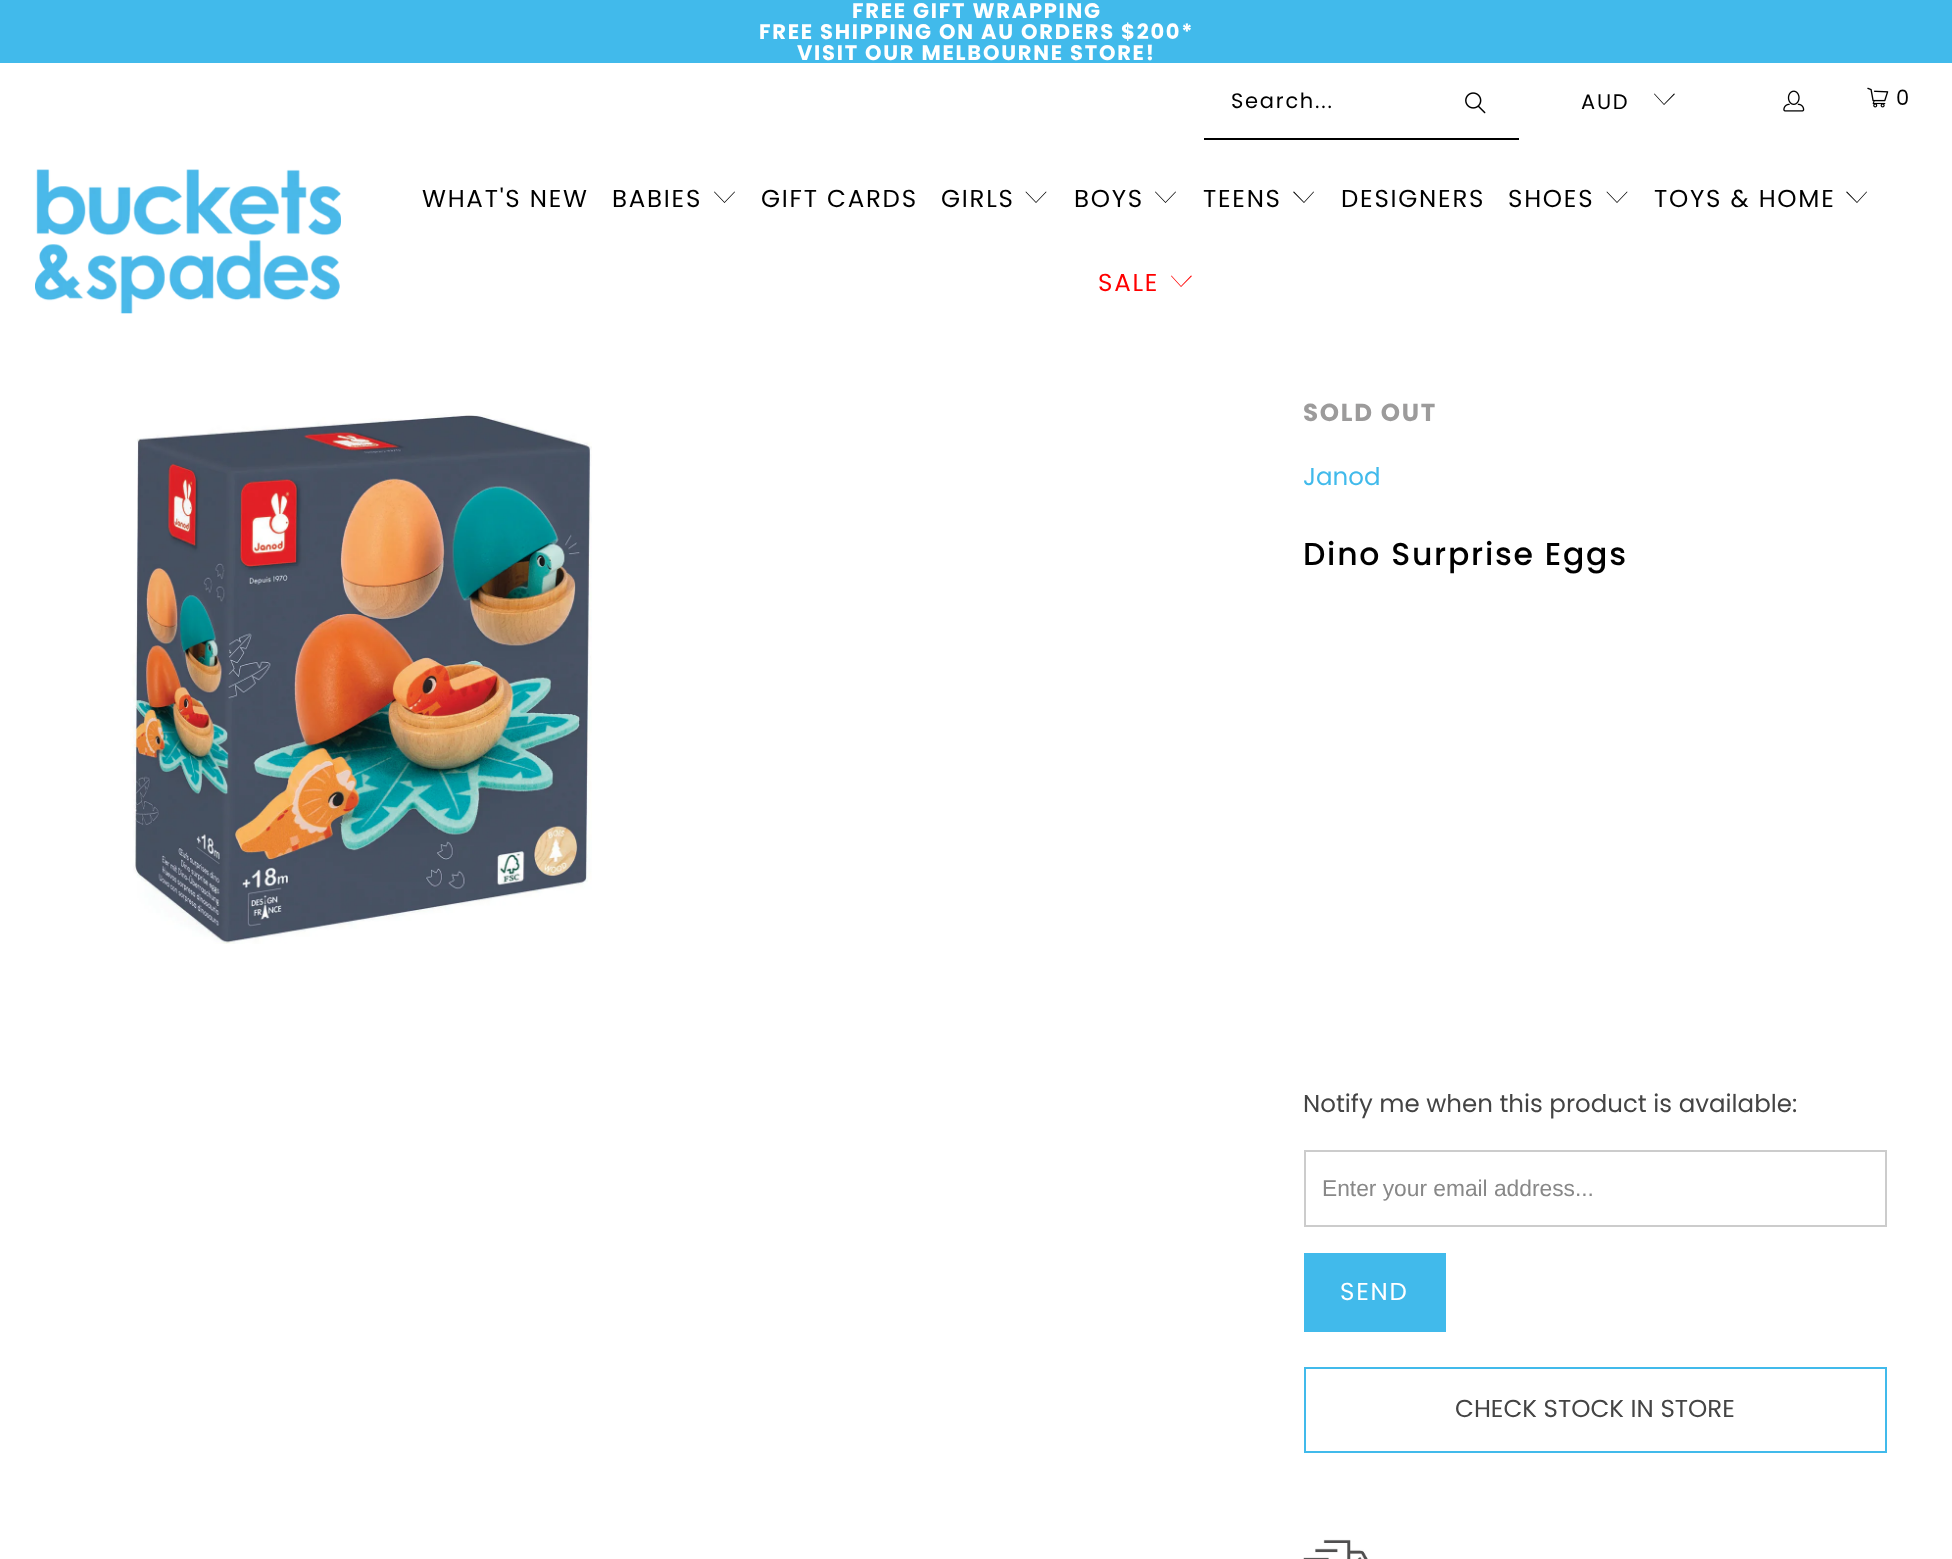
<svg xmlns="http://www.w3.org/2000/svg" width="1952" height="1559">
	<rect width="100%" height="100%" fill="#FFFFFF" />
	<rect x="0" y="0" width="1952" height="63" fill="#41BAEB" />
	<g font-family="Poppins" font-size="21" font-weight="700" letter-spacing="1.75" fill="#FFFFFF">
		<text x="852" y="18">FREE GIFT WRAPPING</text>
		<text x="759" y="39">FREE SHIPPING ON AU ORDERS $200*</text>
		<text x="797" y="60">VISIT OUR MELBOURNE STORE!</text>
	</g>
	<rect x="1204" y="138" width="315" height="2" fill="#000000" />
	<text x="1231" y="108" font-family="Poppins" font-size="21" letter-spacing="1.75" fill="#000000">Search...</text>
	<image x="1465" y="92" width="21" height="22" href="assets/img1.png" />
	<text x="1581" y="109" font-family="Poppins" font-size="21" letter-spacing="1.75" fill="#000000">AUD</text>
	<path d="M1664 105L1654 94L1654.5 93.5L1664 104L1674 93.5L1675 94Z" fill="#000000" />
	<image x="1783" y="90" width="22" height="22" href="assets/img2.png" />
	<image x="1867" y="87" width="22" height="21" href="assets/img3.png" />
	<text x="1896" y="105" font-family="Poppins" font-size="21" letter-spacing="1.75" fill="#000000">0</text>
	<image x="35" y="169" width="306" height="145" href="assets/img4.png" />
	<g font-family="Poppins" font-size="24.5" letter-spacing="1.75" fill="#000000">
		<text x="422" y="207">WHAT'S NEW</text>
		<text x="612" y="207">BABIES</text>
	</g>
	<path d="M724.5 203L714 192L714.5 191.5L724.5 202L734.5 191.5L735 192Z" fill="#000000" />
	<g font-family="Poppins" font-size="24.5" letter-spacing="1.75" fill="#000000">
		<text x="761" y="207">GIFT CARDS</text>
		<text x="941" y="207">GIRLS</text>
	</g>
	<path d="M1036 203L1025.5 192L1026 191.5L1036 202L1046 191.5L1046.5 192Z" fill="#000000" />
	<text x="1074" y="207" font-family="Poppins" font-size="24.5" letter-spacing="1.75" fill="#000000">BOYS</text>
	<path d="M1165.5 203L1155 192L1155.5 191.5L1165.5 202L1175.5 191.5L1176 192Z" fill="#000000" />
	<text x="1203" y="207" font-family="Poppins" font-size="24.5" letter-spacing="1.75" fill="#000000">TEENS</text>
	<path d="M1304 203L1293 192L1294 191.5L1304 202L1313.5 191.5L1314 192Z" fill="#000000" />
	<g font-family="Poppins" font-size="24.5" letter-spacing="1.75" fill="#000000">
		<text x="1341" y="207">DESIGNERS</text>
		<text x="1508" y="207">SHOES</text>
	</g>
	<path d="M1617 203L1606.5 192L1607 191.5L1617 202L1627 191.5L1627.5 192Z" fill="#000000" />
	<text x="1654" y="207" font-family="Poppins" font-size="24.5" letter-spacing="1.75" fill="#000000">TOYS &amp; HOME</text>
	<path d="M1857 203L1846 192L1847 191.5L1857 202L1866.5 191.5L1867 192Z" fill="#000000" />
	<text x="1098" y="291" font-family="Poppins" font-size="24.5" letter-spacing="1.75" fill="#FF0000">SALE</text>
	<path d="M1181 287L1171 276L1171.5 275.5L1181 286L1191 275.5L1192 276Z" fill="#FF0000" />
	<image x="130" y="413" width="462" height="531" href="assets/img5.png" />
	<text x="1303" y="421" font-family="Poppins" font-size="24.5" font-weight="700" letter-spacing="1.75" fill="#9C9B9B">SOLD OUT</text>
	<text x="1303" y="485" font-family="Poppins" font-size="24.5" fill="#41BAEB">Janod</text>
	<text x="1303" y="565" font-family="Poppins" font-size="31.5" font-weight="500" letter-spacing="1.75" fill="#000000">Dino Surprise Eggs</text>
	<text x="1303" y="1112" font-family="Poppins" font-size="24.5" fill="#444444">Notify me when this product is available:</text>
	<rect x="1305" y="1151" width="581" height="75" fill="none" stroke="#CCCCCC" stroke-width="2" />
	<text x="1322" y="1196" font-family="Liberation Sans" font-size="22.75" fill="#888888">Enter your email address...</text>
	<rect x="1304" y="1253" width="142" height="79" fill="#41BAEB" />
	<text x="1340" y="1300" font-family="Poppins" font-size="24.5" letter-spacing="1.75" fill="#FFFFFF">SEND</text>
	<rect x="1305" y="1368" width="581" height="84" fill="none" stroke="#41BAEB" stroke-width="2" />
	<text x="1455" y="1417" font-family="Poppins" font-size="24.5" fill="#444444">CHECK STOCK IN STORE</text>
	<image x="1303" y="1539" width="65" height="20" href="assets/img6.png" />
</svg>
